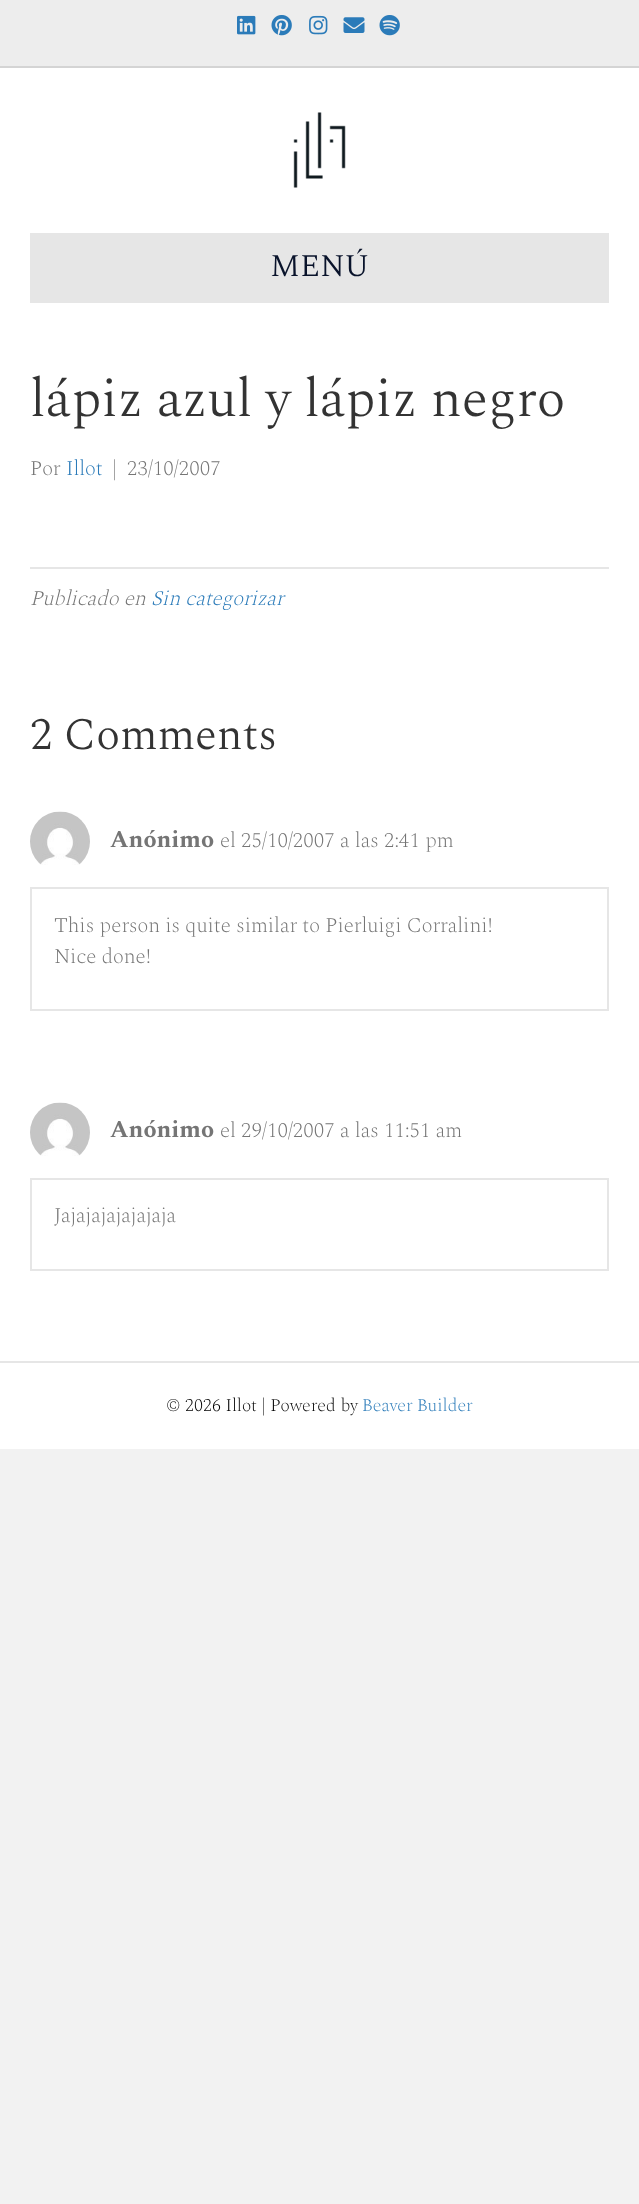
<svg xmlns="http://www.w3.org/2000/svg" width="639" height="2204">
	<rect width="100%" height="100%" fill="#F2F2F2" />
	<rect x="0" y="0" width="639" height="66" fill="#EDEDED" />
	<rect x="0" y="66" width="639" height="2" fill="#D4D4D4" />
	<image x="237" y="15" width="19" height="20" href="assets/img1.png" />
	<image x="271" y="15" width="21" height="21" href="assets/img2.png" />
	<image x="309" y="15" width="19" height="20" href="assets/img3.png" />
	<image x="343" y="17" width="22" height="16" href="assets/img4.png" />
	<image x="379" y="15" width="21" height="21" href="assets/img5.png" />
	<rect x="0" y="68" width="639" height="1293" fill="#FFFFFF" />
	<image x="293" y="112" width="53" height="76" href="assets/img6.png" />
	<rect x="30" y="233" width="579" height="70" fill="#E6E6E6" />
	<text x="270" y="276" font-family="Spectral" font-size="31.5" font-weight="300" fill="#09132B">MENÚ</text>
	<text x="30" y="416" font-family="Spectral" font-size="54" font-weight="300" fill="#333333">lápiz azul y lápiz negro</text>
	<text x="30" y="475" font-family="Spectral" font-size="21" font-weight="200" fill="#757575">Por</text>
	<text x="66" y="475" font-family="Spectral" font-size="21" font-weight="200" fill="#2B7BB9">Illot</text>
	<g font-family="Spectral" font-size="21" font-weight="200" fill="#757575">
		<text x="112" y="475">|</text>
		<text x="127" y="475">23/10/2007</text>
	</g>
	<rect x="30" y="567" width="579" height="2" fill="#E6E6E6" />
	<text x="30" y="605" font-family="Spectral" font-size="21" font-weight="200" font-style="italic" fill="#757575">Publicado en</text>
	<text x="151" y="605" font-family="Spectral" font-size="21" font-weight="200" font-style="italic" fill="#2B7BB9">Sin categorizar</text>
	<text x="30" y="749" font-family="Spectral" font-size="45" font-weight="300" fill="#333333">2 Comments</text>
	<image x="30" y="811" width="60" height="54" href="assets/img7.png" />
	<text x="110" y="847" font-family="Spectral" font-size="24" font-weight="700" fill="#757575">Anónimo</text>
	<text x="220" y="847" font-family="Spectral" font-size="21" font-weight="200" fill="#757575">el 25/10/2007 a las 2:41 pm</text>
	<rect x="31" y="888" width="577" height="122" fill="none" stroke="#E6E6E6" stroke-width="2" />
	<g font-family="Spectral" font-size="21" font-weight="200" fill="#757575">
		<text x="54" y="932">This person is quite similar to Pierluigi Corralini!</text>
		<text x="54" y="963">Nice done!</text>
	</g>
	<image x="30" y="1102" width="60" height="54" href="assets/img7.png" />
	<text x="110" y="1137" font-family="Spectral" font-size="24" font-weight="700" fill="#757575">Anónimo</text>
	<text x="220" y="1137" font-family="Spectral" font-size="21" font-weight="200" fill="#757575">el 29/10/2007 a las 11:51 am</text>
	<rect x="31" y="1179" width="577" height="91" fill="none" stroke="#E6E6E6" stroke-width="2" />
	<text x="54" y="1222" font-family="Spectral" font-size="21" font-weight="200" fill="#757575">Jajajajajajajaja</text>
	<rect x="0" y="1363" width="639" height="86" fill="#FFFFFF" />
	<rect x="0" y="1361" width="639" height="2" fill="#E6E6E6" />
	<text x="166" y="1411" font-family="Spectral" font-size="18" font-weight="200" fill="#000000">© 2026 Illot | Powered by</text>
	<text x="362" y="1411" font-family="Spectral" font-size="18" font-weight="200" fill="#2B7BB9">Beaver Builder</text>
</svg>
